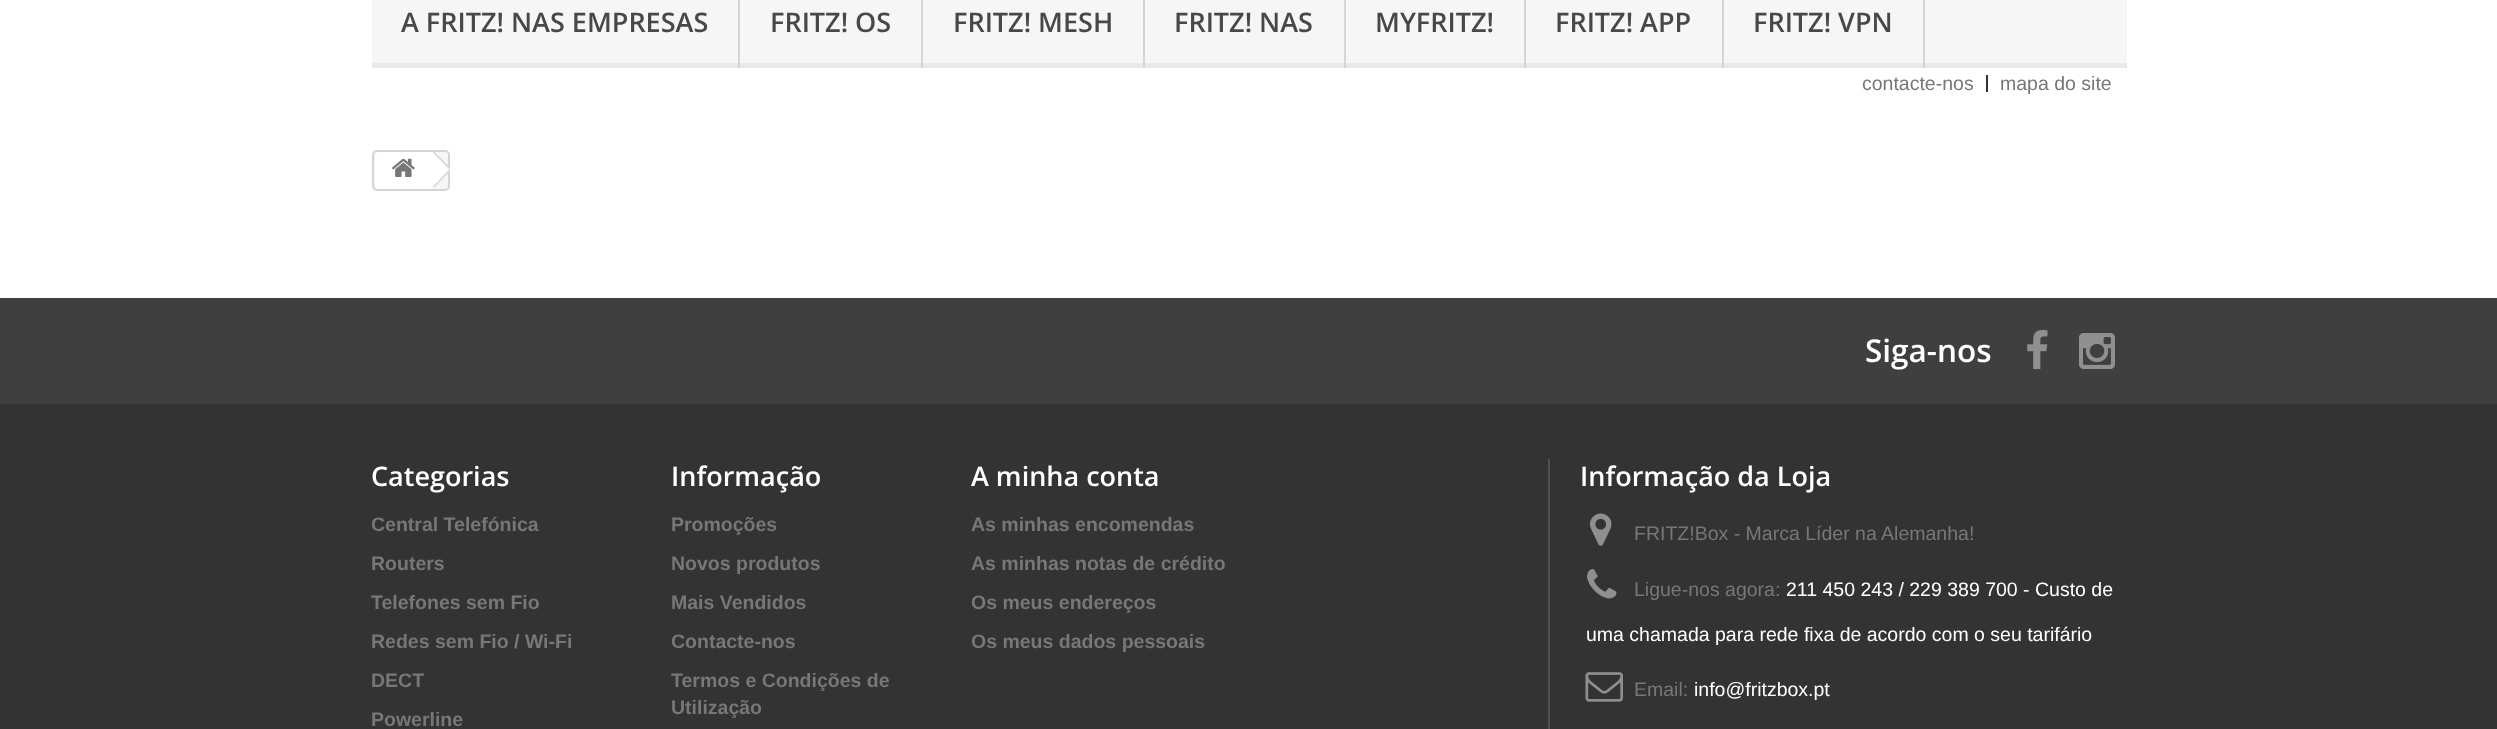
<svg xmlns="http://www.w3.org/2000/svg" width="2497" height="729">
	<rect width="100%" height="100%" fill="#FFFFFF" />
	<rect x="372" y="0" width="1755" height="63" fill="#F6F6F6" />
	<rect x="372" y="63" width="1755" height="5" fill="#E9E9E9" />
	<rect x="738" y="0" width="2" height="68" fill="#D6D4D4" />
	<text x="401" y="32" font-family="Open Sans" font-size="27" font-weight="600" fill="#484848">A FRITZ! NAS EMPRESAS</text>
	<rect x="921" y="0" width="2" height="68" fill="#D6D4D4" />
	<text x="770" y="32" font-family="Open Sans" font-size="27" font-weight="600" fill="#484848">FRITZ! OS</text>
	<rect x="1143" y="0" width="2" height="68" fill="#D6D4D4" />
	<text x="953" y="32" font-family="Open Sans" font-size="27" font-weight="600" fill="#484848">FRITZ! MESH</text>
	<rect x="1344" y="0" width="2" height="68" fill="#D6D4D4" />
	<text x="1174" y="32" font-family="Open Sans" font-size="27" font-weight="600" fill="#484848">FRITZ! NAS</text>
	<rect x="1524" y="0" width="2" height="68" fill="#D6D4D4" />
	<text x="1375" y="32" font-family="Open Sans" font-size="27" font-weight="600" fill="#484848">MYFRITZ!</text>
	<rect x="1722" y="0" width="2" height="68" fill="#D6D4D4" />
	<text x="1555" y="32" font-family="Open Sans" font-size="27" font-weight="600" fill="#484848">FRITZ! APP</text>
	<rect x="1923" y="0" width="2" height="68" fill="#D6D4D4" />
	<text x="1753" y="32" font-family="Open Sans" font-size="27" font-weight="600" fill="#484848">FRITZ! VPN</text>
	<text x="1862" y="90" font-family="Liberation Sans" font-size="19.5" fill="#777777">contacte-nos</text>
	<rect x="1986" y="75" width="2" height="17" fill="#333333" />
	<text x="2000" y="90" font-family="Liberation Sans" font-size="19.5" fill="#777777">mapa do site</text>
	<rect x="373" y="151" width="76" height="39" rx="4" fill="#F6F6F6" stroke="#D6D4D4" stroke-width="2" />
	<path d="M380 152H432V189H380C377 189 375 187 375 184V157C375 154 377 152 380 152Z" fill="#FFFFFF" />
	<path d="M435 152.5L434 152H431.5L430.5 152.5L416 167.5C414.5 168.5 414.5 170.5 416 171.5L430.5 186.5C432 187.5 433.5 187.5 435 186.5L449 172V167Z" fill="#FFFFFF" />
	<image x="392" y="158" width="23" height="19" href="assets/img1.png" />
	<path d="M449 169L433 152.5L433.5 152H434.5L449 166.5ZM449 170V172.5L434 187.5L433 186.5Z" fill="#D6D4D4" />
	<rect x="0" y="404" width="2497" height="325" fill="#333333" />
	<rect x="0" y="298" width="2497" height="106" fill="#3F3F3F" />
	<text x="1865" y="362" font-family="Open Sans" font-size="31.5" font-weight="600" fill="#FFFFFF">Siga-nos</text>
	<image x="2027" y="330" width="21" height="39" href="assets/img2.png" />
	<image x="2079" y="333" width="36" height="36" href="assets/img3.png" />
	<text x="371" y="486" font-family="Open Sans" font-size="27" font-weight="600" fill="#FFFFFF">Categorias</text>
	<g font-family="Liberation Sans" font-size="19.5" font-weight="700" fill="#777777">
		<text x="371" y="531">Central Telefónica</text>
		<text x="371" y="570">Routers</text>
		<text x="371" y="609">Telefones sem Fio</text>
		<text x="371" y="648">Redes sem Fio / Wi-Fi</text>
		<text x="371" y="687">DECT</text>
		<text x="371" y="726">Powerline</text>
	</g>
	<text x="671" y="486" font-family="Open Sans" font-size="27" font-weight="600" fill="#FFFFFF">Informação</text>
	<g font-family="Liberation Sans" font-size="19.5" font-weight="700" fill="#777777">
		<text x="671" y="531">Promoções</text>
		<text x="671" y="570">Novos produtos</text>
		<text x="671" y="609">Mais Vendidos</text>
		<text x="671" y="648">Contacte-nos</text>
		<text x="671" y="687">Termos e Condições de</text>
		<text x="671" y="714">Utilização</text>
	</g>
	<text x="971" y="486" font-family="Open Sans" font-size="27" font-weight="600" fill="#FFFFFF">A minha conta</text>
	<g font-family="Liberation Sans" font-size="19.5" font-weight="700" fill="#777777">
		<text x="971" y="531">As minhas encomendas</text>
		<text x="971" y="570">As minhas notas de crédito</text>
		<text x="971" y="609">Os meus endereços</text>
		<text x="971" y="648">Os meus dados pessoais</text>
	</g>
	<rect x="1548" y="459" width="2" height="270" fill="#515151" />
	<text x="1580" y="486" font-family="Open Sans" font-size="27" font-weight="600" fill="#FFFFFF">Informação da Loja</text>
	<image x="1590" y="513" width="22" height="33" href="assets/img4.png" />
	<text x="1634" y="540" font-family="Liberation Sans" font-size="19.5" fill="#777777">FRITZ!Box - Marca Líder na Alemanha!</text>
	<image x="1587" y="569" width="30" height="30" href="assets/img5.png" />
	<text x="1634" y="596" font-family="Liberation Sans" font-size="19.5" fill="#777777">Ligue-nos agora:</text>
	<g font-family="Liberation Sans" font-size="19.5" fill="#FFFFFF">
		<text x="1786" y="596">211 450 243 / 229 389 700 - Custo de</text>
		<text x="1586" y="641">uma chamada para rede fixa de acordo com o seu tarifário</text>
	</g>
	<image x="1585" y="672" width="38" height="30" href="assets/img6.png" />
	<text x="1634" y="696" font-family="Liberation Sans" font-size="19.5" fill="#777777">Email:</text>
	<text x="1694" y="696" font-family="Liberation Sans" font-size="19.5" fill="#FFFFFF">info@fritzbox.pt</text>
</svg>
